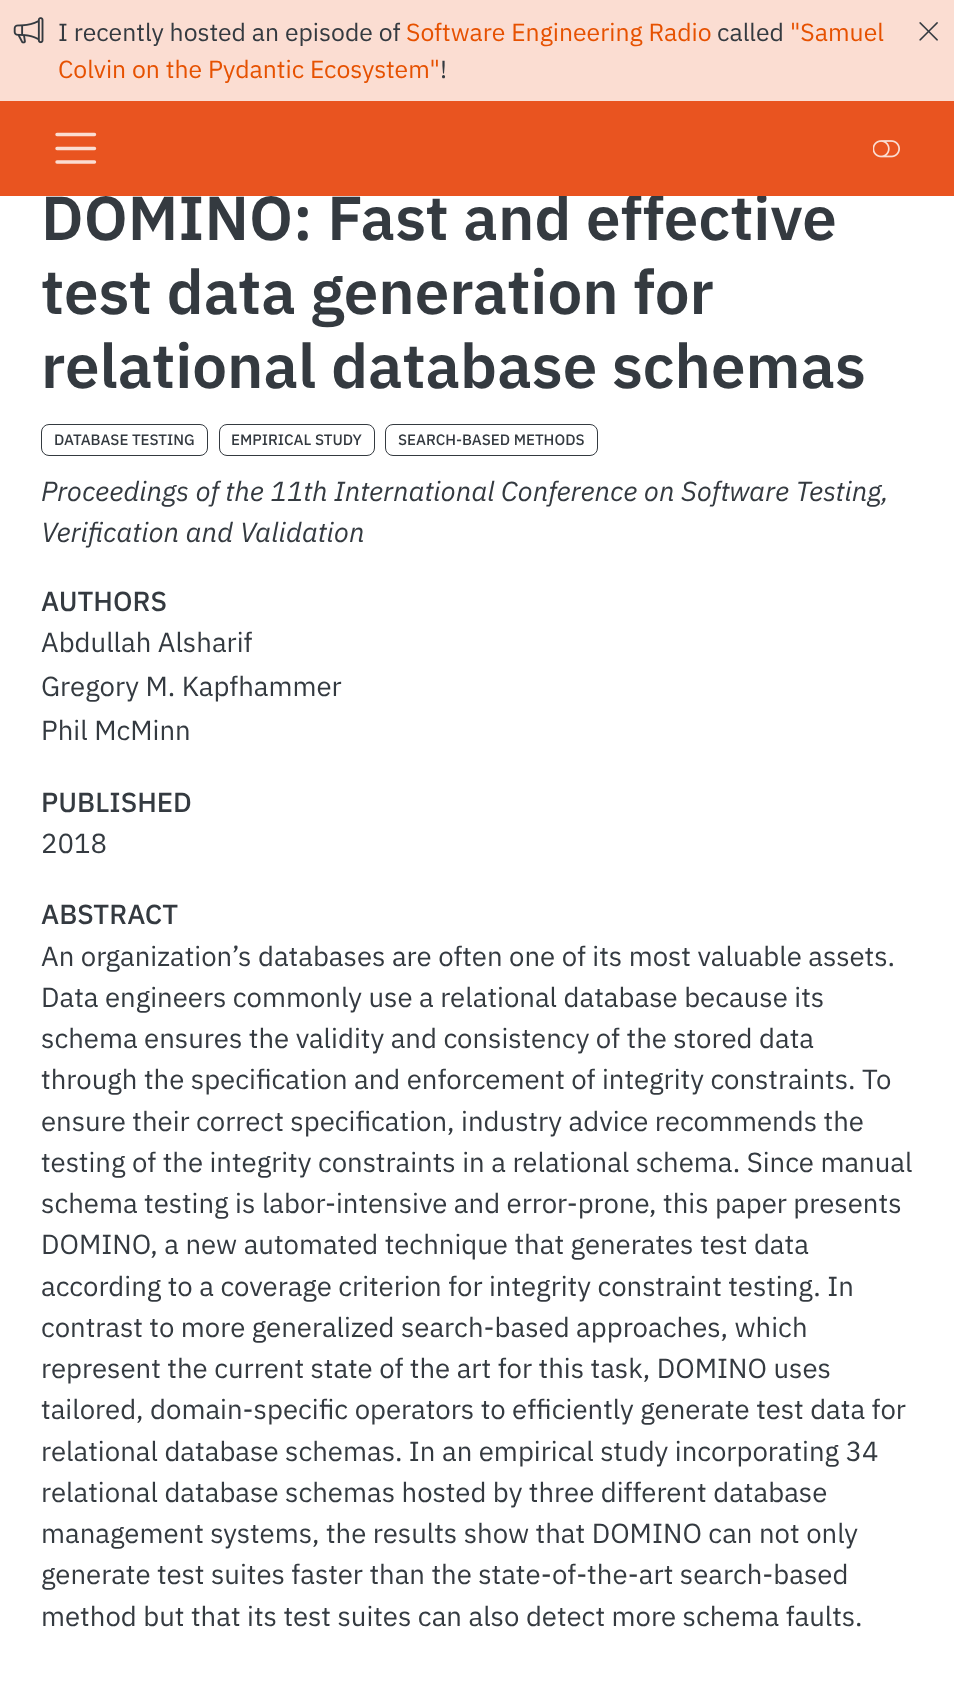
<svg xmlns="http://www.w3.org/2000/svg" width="954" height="1686">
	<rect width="100%" height="100%" fill="#FFFFFF" />
	<rect x="0" y="0" width="954" height="101" fill="#FBDDD2" />
	<image x="13" y="17" width="31" height="27" href="assets/img1.png" />
	<text x="58" y="41" font-family="IBM Plex Sans" font-size="24.75" fill="#343A40">I recently hosted an episode of</text>
	<text x="406" y="41" font-family="IBM Plex Sans" font-size="24.75" fill="#E65100">Software Engineering Radio</text>
	<text x="717" y="41" font-family="IBM Plex Sans" font-size="24.75" fill="#343A40">called</text>
	<g font-family="IBM Plex Sans" font-size="24.75" fill="#E65100">
		<text x="790" y="41">"Samuel</text>
		<text x="58" y="78">Colvin on the Pydantic Ecosystem"</text>
	</g>
	<text x="440" y="78" font-family="IBM Plex Sans" font-size="24.75" fill="#343A40">!</text>
	<image x="919" y="22" width="19" height="19" href="assets/img2.png" />
	<text x="41" y="240" font-family="IBM Plex Sans" font-size="61.9" font-weight="600" fill="#343A40">DOMINO: Fast and effective</text>
	<rect x="0" y="101" width="954" height="95" fill="#E95420" />
	<path d="M57 134.5H94.5M57 148.5H94.5M57 162H94.5" fill="none" stroke="#FBDDD2" stroke-width="3.4" stroke-linecap="round" />
	<image x="873" y="140" width="27" height="18" href="assets/img3.png" />
	<g font-family="IBM Plex Sans" font-size="61.9" font-weight="600" fill="#343A40">
		<text x="41" y="314">test data generation for</text>
		<text x="41" y="388">relational database schemas</text>
	</g>
	<rect x="41.5" y="424.5" width="166" height="31" rx="7.5" fill="none" stroke="#343A40" />
	<text x="54" y="445" font-family="IBM Plex Sans" font-size="15.1" font-weight="500" fill="#343A40">DATABASE TESTING</text>
	<rect x="219.5" y="424.5" width="155" height="31" rx="7.5" fill="none" stroke="#343A40" />
	<text x="231" y="445" font-family="IBM Plex Sans" font-size="15.1" font-weight="500" fill="#343A40">EMPIRICAL STUDY</text>
	<rect x="385.5" y="424.5" width="212" height="31" rx="7.5" fill="none" stroke="#343A40" />
	<text x="398" y="445" font-family="IBM Plex Sans" font-size="15.1" font-weight="500" fill="#343A40">SEARCH-BASED METHODS</text>
	<g font-family="IBM Plex Sans" font-size="27.5" font-style="italic" fill="#343A40">
		<text x="41" y="501">Proceedings of the 11th International Conference on Software Testing,</text>
		<text x="41" y="542">Verification and Validation</text>
	</g>
	<text x="41" y="611" font-family="IBM Plex Sans" font-size="27.5" font-weight="500" fill="#343A40">AUTHORS</text>
	<g font-family="IBM Plex Sans" font-size="27.5" fill="#343A40">
		<text x="41" y="652">Abdullah Alsharif</text>
		<text x="41" y="696">Gregory M. Kapfhammer</text>
		<text x="41" y="740">Phil McMinn</text>
	</g>
	<text x="41" y="812" font-family="IBM Plex Sans" font-size="27.5" font-weight="500" fill="#343A40">PUBLISHED</text>
	<text x="41" y="853" font-family="IBM Plex Sans" font-size="27.5" fill="#343A40">2018</text>
	<text x="41" y="924" font-family="IBM Plex Sans" font-size="27.5" font-weight="500" fill="#343A40">ABSTRACT</text>
	<g font-family="IBM Plex Sans" font-size="27.5" fill="#343A40">
		<text x="41" y="966">An organization’s databases are often one of its most valuable assets.</text>
		<text x="41" y="1007">Data engineers commonly use a relational database because its</text>
		<text x="41" y="1048">schema ensures the validity and consistency of the stored data</text>
		<text x="41" y="1089">through the specification and enforcement of integrity constraints. To</text>
		<text x="41" y="1131">ensure their correct specification, industry advice recommends the</text>
		<text x="41" y="1172">testing of the integrity constraints in a relational schema. Since manual</text>
		<text x="41" y="1213">schema testing is labor-intensive and error-prone, this paper presents</text>
		<text x="41" y="1254">DOMINO, a new automated technique that generates test data</text>
		<text x="41" y="1296">according to a coverage criterion for integrity constraint testing. In</text>
		<text x="41" y="1337">contrast to more generalized search-based approaches, which</text>
		<text x="41" y="1378">represent the current state of the art for this task, DOMINO uses</text>
		<text x="41" y="1419">tailored, domain-specific operators to efficiently generate test data for</text>
		<text x="41" y="1461">relational database schemas. In an empirical study incorporating 34</text>
		<text x="41" y="1502">relational database schemas hosted by three different database</text>
		<text x="41" y="1543">management systems, the results show that DOMINO can not only</text>
		<text x="41" y="1584">generate test suites faster than the state-of-the-art search-based</text>
		<text x="41" y="1626">method but that its test suites can also detect more schema faults.</text>
	</g>
</svg>
